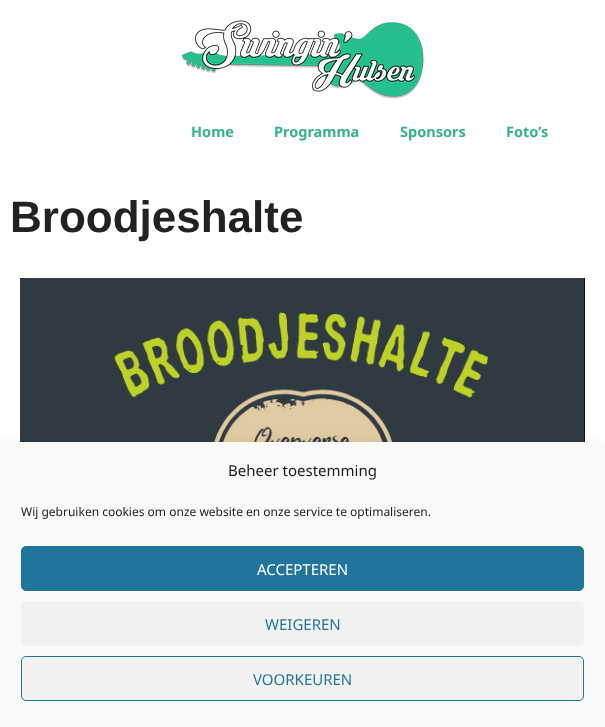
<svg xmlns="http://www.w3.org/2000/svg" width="605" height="727">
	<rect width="100%" height="100%" fill="#FFFFFF" />
	<image x="182" y="20" width="242" height="79" href="assets/img1.png" />
	<g font-family="Noto Sans" font-size="14.5" font-weight="700" fill="#37B38A">
		<text x="191" y="137">Home</text>
		<text x="274" y="137">Programma</text>
		<text x="400" y="137">Sponsors</text>
		<text x="506" y="137">Foto’s</text>
	</g>
	<text x="10" y="232" font-family="Liberation Sans" font-size="44" font-weight="700" fill="#222222">Broodjeshalte</text>
	<image x="20" y="278" width="565" height="164" href="assets/img2.png" />
	<rect x="0" y="452" width="605" height="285" fill="#000000" fill-opacity="0.19" filter="blur(10px)" />
	<rect x="0" y="443" width="605" height="284" fill="#F9F9F9" />
	<text x="228" y="476" font-family="Noto Sans" font-size="15" fill="#191E23">Beheer toestemming</text>
	<text x="21" y="516" font-family="Noto Sans" font-size="12" fill="#191E23">Wij gebruiken cookies om onze website en onze service te optimaliseren.</text>
	<rect x="21.5" y="546.5" width="562" height="44" rx="4.5" fill="#21759B" stroke="#21759B" />
	<text x="257" y="575" font-family="Noto Sans" font-size="15" fill="#FFFFFF">ACCEPTEREN</text>
	<rect x="21" y="601" width="563" height="45" rx="5" fill="#F1F1F1" />
	<text x="265" y="630" font-family="Noto Sans" font-size="15" fill="#21759B">WEIGEREN</text>
	<rect x="21.5" y="656.5" width="562" height="44" rx="4.5" fill="#F1F1F1" stroke="#21759B" />
	<text x="253" y="685" font-family="Noto Sans" font-size="15" fill="#21759B">VOORKEUREN</text>
</svg>
